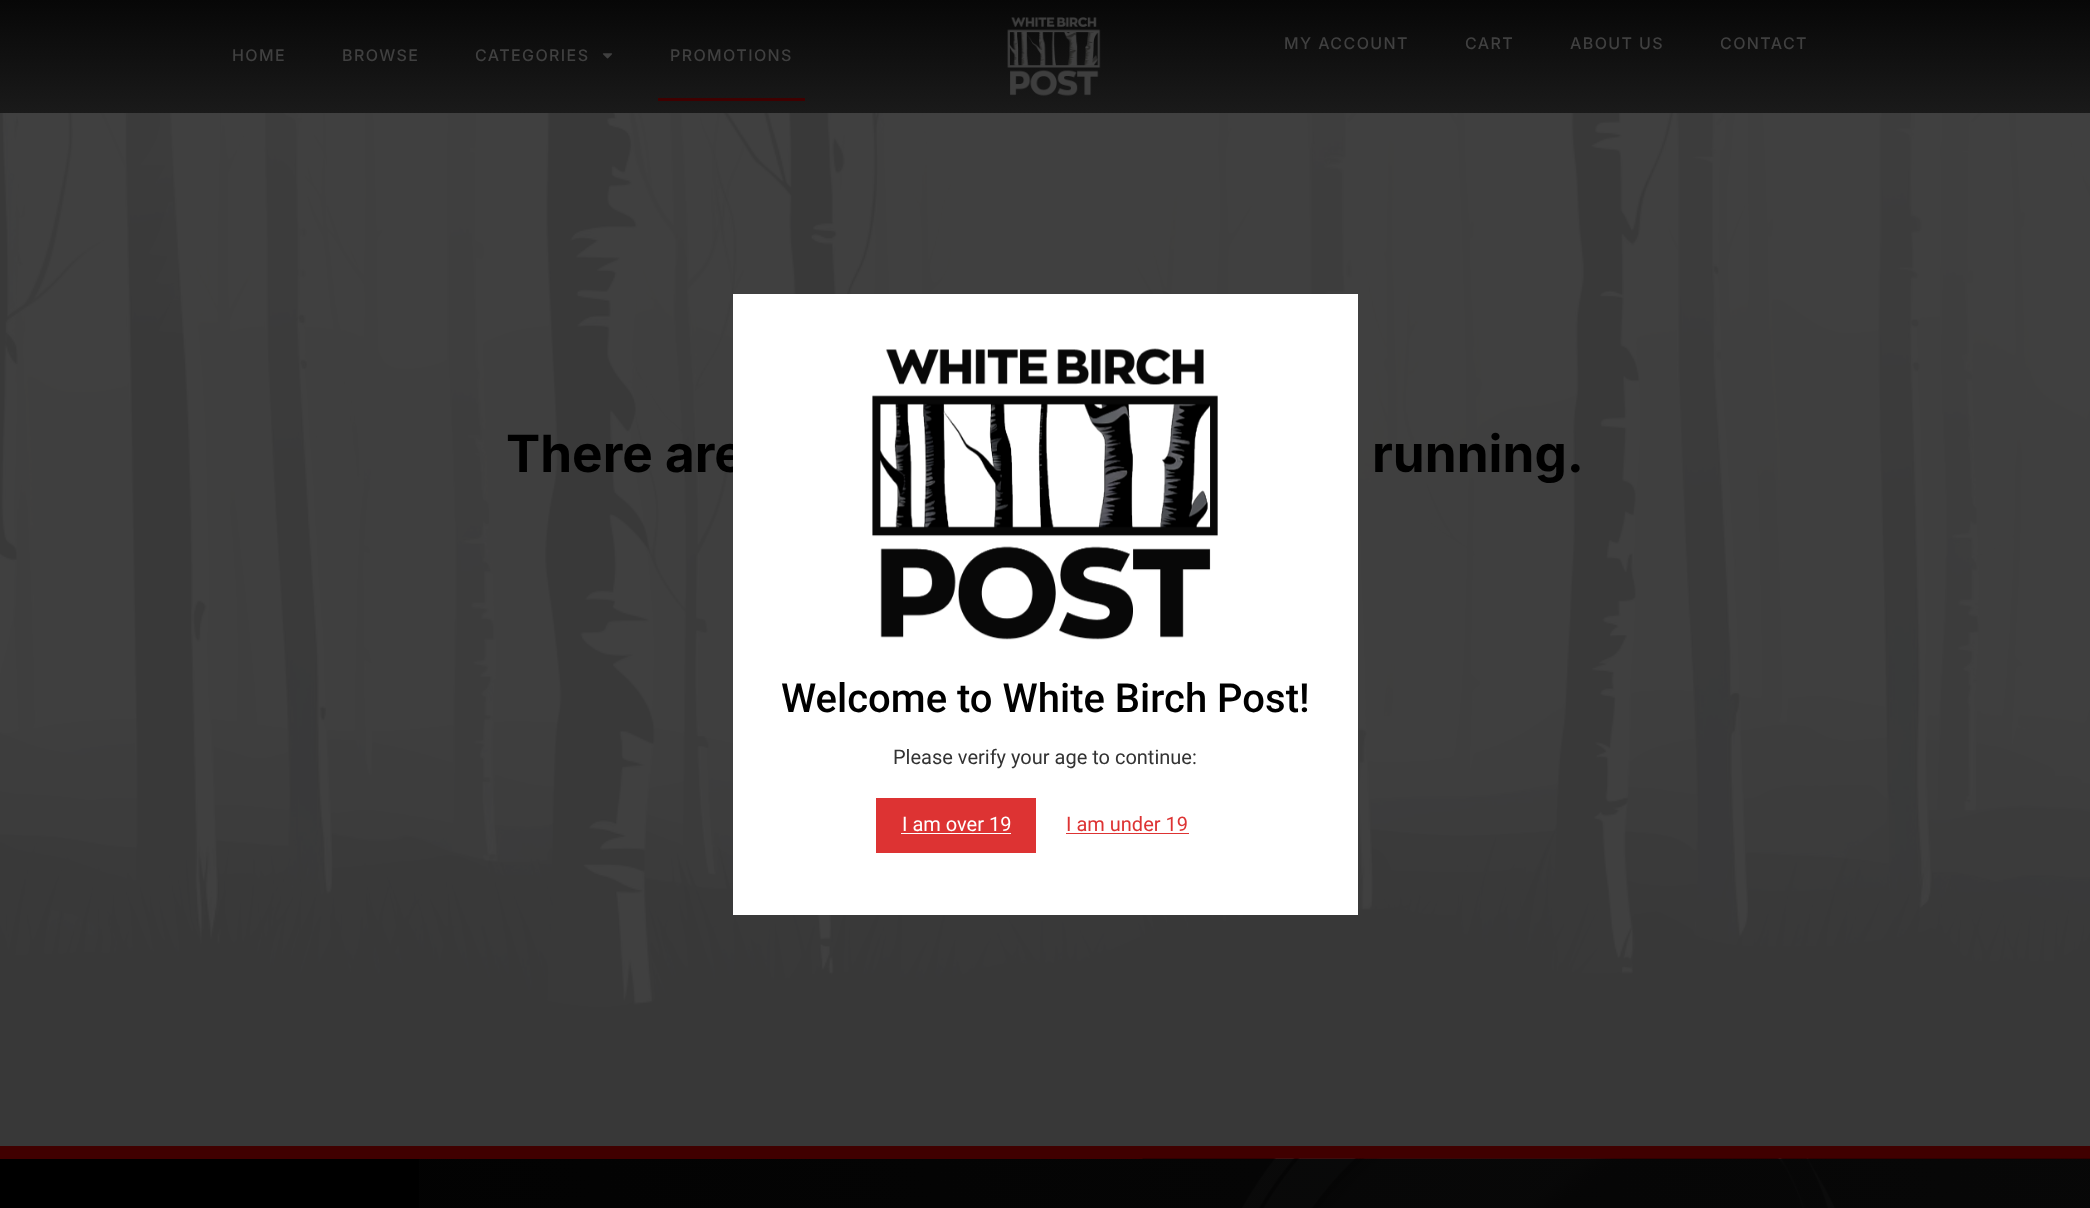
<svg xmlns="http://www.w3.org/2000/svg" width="2090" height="1208">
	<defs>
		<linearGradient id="g1" gradientUnits="userSpaceOnUse" x1="1045" y1="0" x2="1045" y2="113"><stop offset="0" stop-color="#070707" /><stop offset="1" stop-color="#1A1A1A" /></linearGradient>
		<linearGradient id="g2" gradientUnits="userSpaceOnUse" x1="2072" y1="1092" x2="18" y2="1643"><stop offset="0" stop-color="#080808" stop-opacity="0.93" /><stop offset="1" stop-color="#010101" stop-opacity="0.93" /></linearGradient>
	</defs>
	<rect width="100%" height="100%" fill="#FFFFFF" />
	<rect x="0" y="0" width="2090" height="113" fill="url(#g1)" />
	<image x="1007" y="17" width="94" height="79" href="assets/img1.png" />
	<g font-family="Inter" font-size="16" font-weight="500" letter-spacing="1.4" fill="#404040">
		<text x="1284" y="49">MY ACCOUNT</text>
		<text x="1465" y="49">CART</text>
		<text x="1570" y="49">ABOUT US</text>
		<text x="1720" y="49">CONTACT</text>
		<text x="232" y="61">HOME</text>
		<text x="342" y="61">BROWSE</text>
		<text x="475" y="61">CATEGORIES</text>
	</g>
	<image x="602" y="53" width="11" height="6" href="assets/img2.png" />
	<text x="670" y="61" font-family="Inter" font-size="16" font-weight="500" letter-spacing="1.4" fill="#404040">PROMOTIONS</text>
	<rect x="658" y="98" width="147" height="3" fill="#400000" />
	<image x="0" y="113" width="2090" height="1033" href="assets/img3.png" />
	<g font-family="Inter" font-size="51.25" font-weight="700" fill="#000000">
		<text x="506" y="472">There are</text>
		<text x="1372" y="472">running.</text>
	</g>
	<rect x="0" y="1146" width="2090" height="13" fill="#400000" />
	<rect x="0" y="1159" width="1143" height="49" fill="#000000" />
	<image x="1142" y="1158" width="948" height="50" href="assets/img4.png" />
	<rect x="419" y="1159" width="1671" height="49" fill="url(#g2)" />
	<rect x="733" y="294" width="625" height="621" fill="#FFFFFF" />
	<image x="872" y="348" width="346" height="292" href="assets/img5.png" />
	<text x="781" y="712" font-family="Roboto" font-size="40" font-weight="500" fill="#000000">Welcome to White Birch Post!</text>
	<text x="893" y="764" font-family="Roboto" font-size="20" fill="#333333">Please verify your age to continue:</text>
	<rect x="876" y="798" width="160" height="55" fill="#DD3333" />
	<text x="902" y="831" font-family="Roboto" font-size="20" fill="#FFFFFF">I am over 19</text>
	<rect x="901" y="833" width="110" height="1" fill="#FFFFFF" />
	<text x="1066" y="831" font-family="Roboto" font-size="20" fill="#DD3333">I am under 19</text>
	<rect x="1066" y="833" width="123" height="1" fill="#DD3333" />
</svg>
